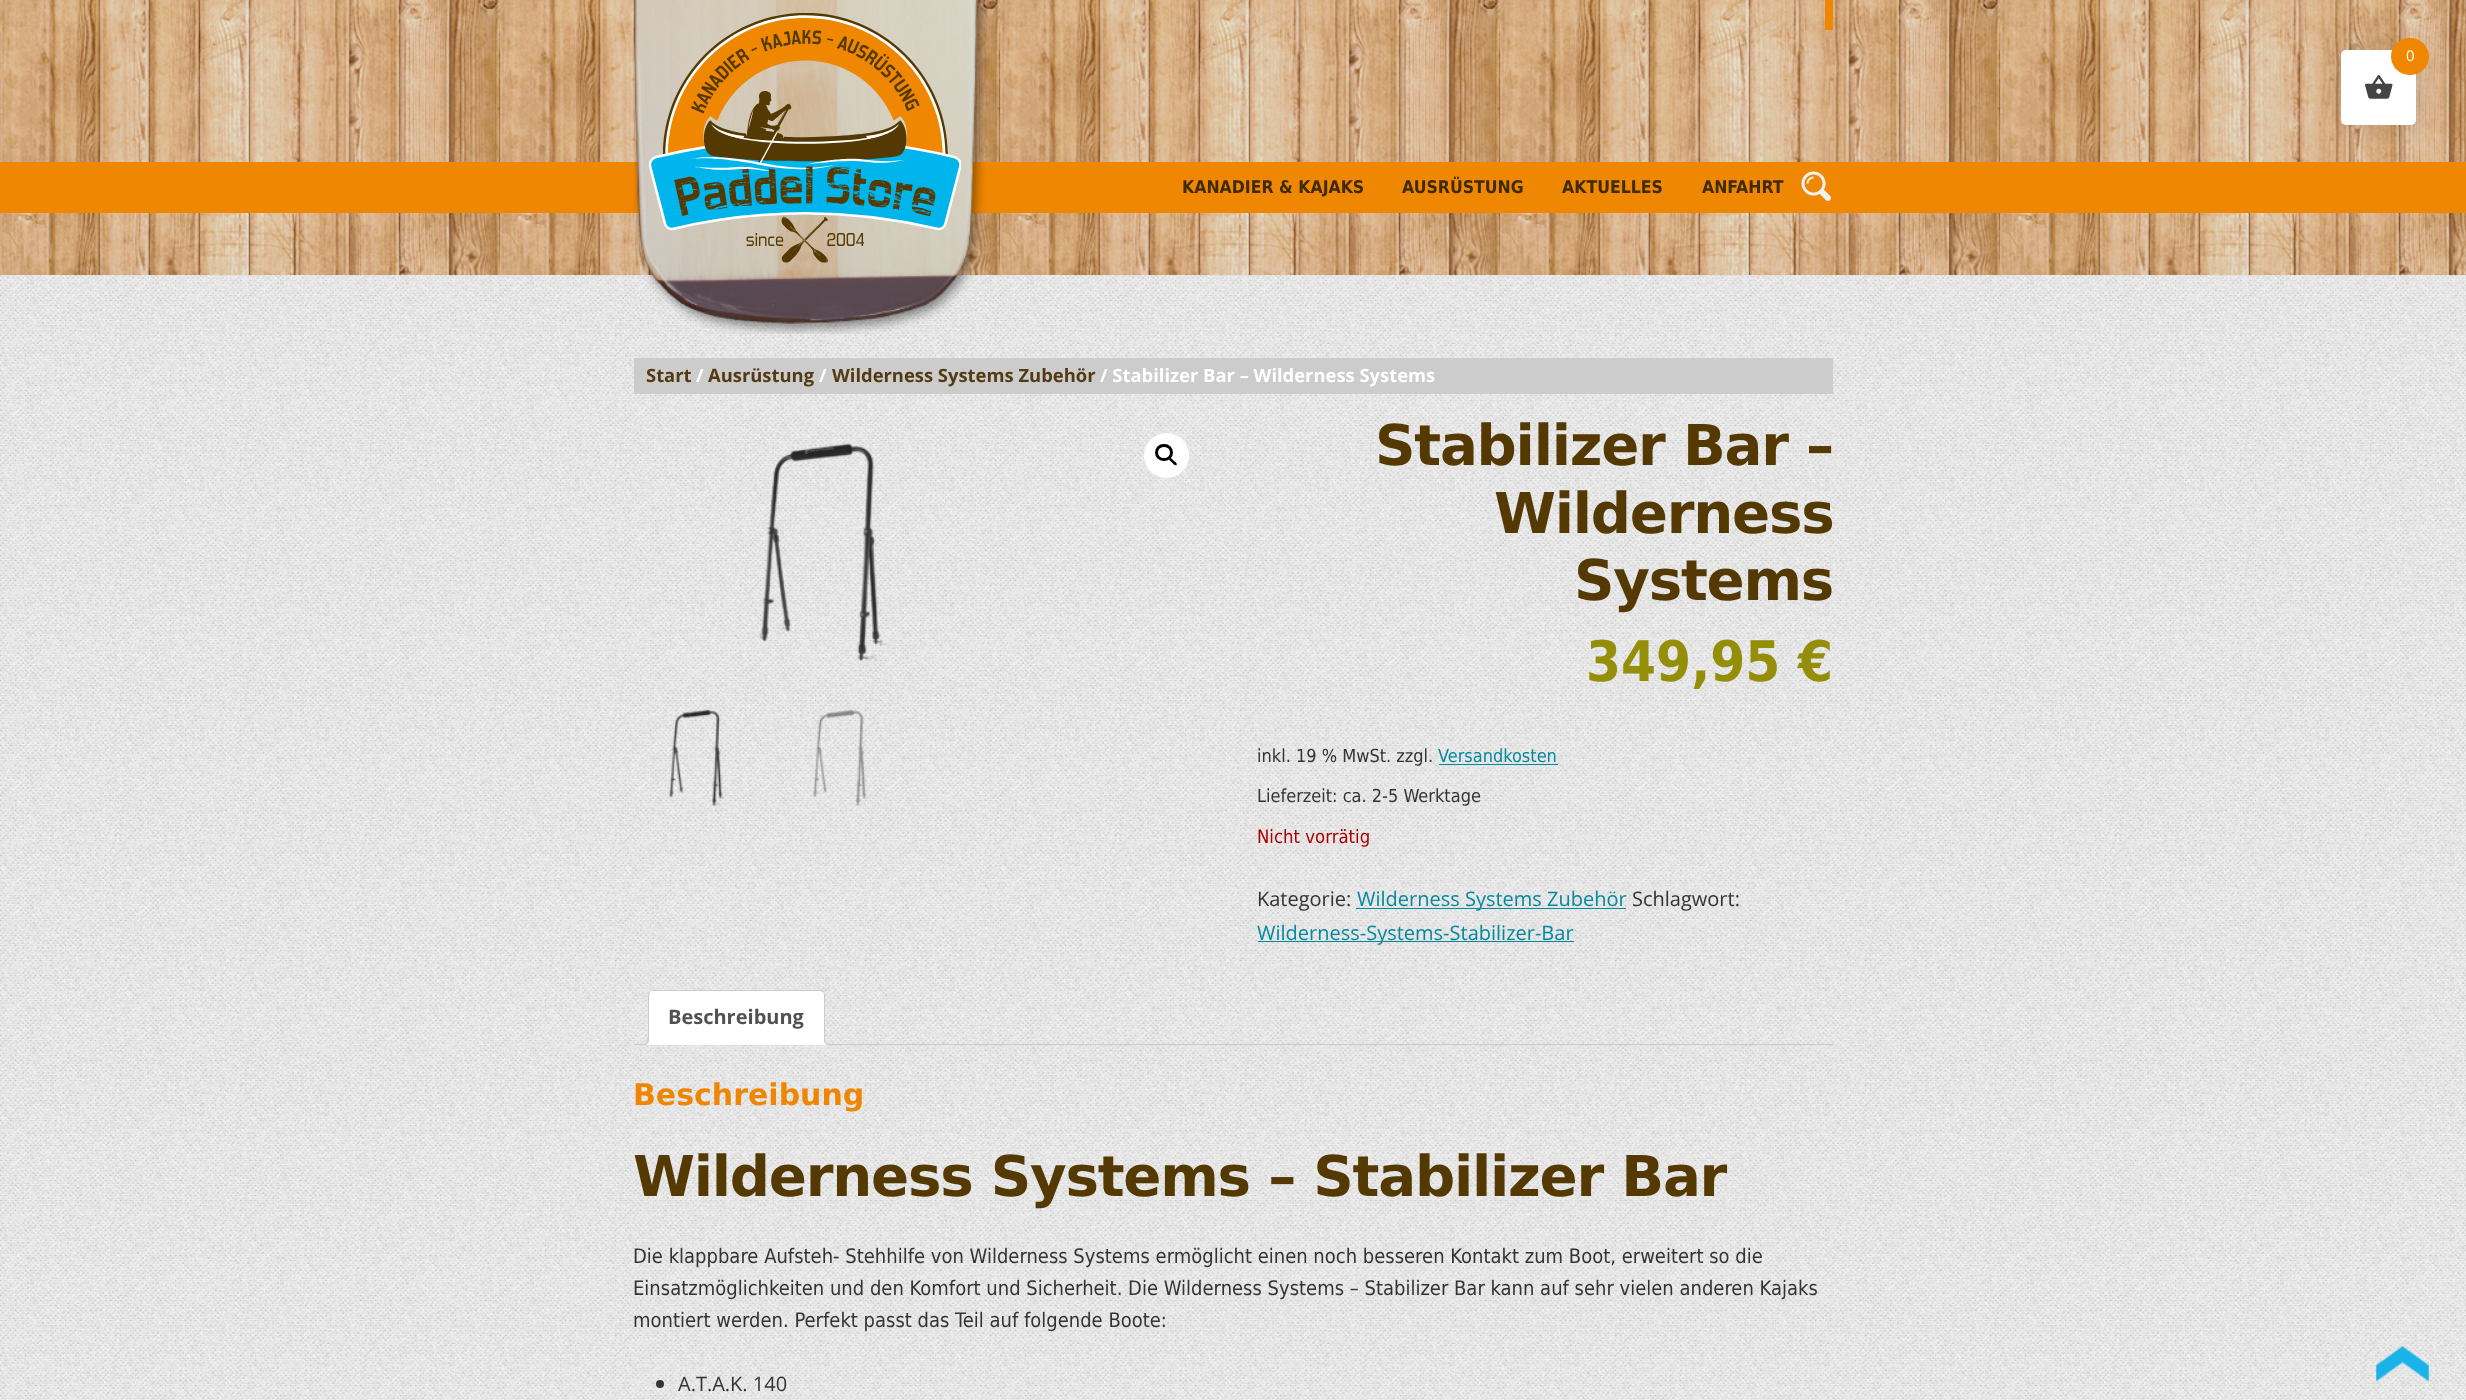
<svg xmlns="http://www.w3.org/2000/svg" width="2466" height="1400">
	<defs>
		<clipPath id="clip1"><rect x="634" y="990" width="1199" height="55" /></clipPath>
	</defs>
	<rect width="100%" height="100%" fill="#FFFFFF" />
	<image x="0" y="0" width="2466" height="275" href="assets/img1.png" />
	<rect x="0" y="162" width="2466" height="51" fill="#EF8702" />
	<rect x="2341" y="50" width="75" height="75" rx="5" fill="#000000" fill-opacity="0.15" filter="blur(12.5px)" />
	<rect x="2341" y="50" width="75" height="75" rx="5" fill="#FFFFFF" />
	<rect x="2391" y="38" width="38" height="37" rx="18.5" fill="#F08700" />
	<text x="2406" y="61" font-family="Open Sans" font-size="15" fill="#FFFFFF">0</text>
	<image x="2365" y="75" width="28" height="24" href="assets/img2.png" />
	<image x="0" y="275" width="2466" height="1125" href="assets/img6.png" />
	<image x="633" y="0" width="355" height="334" href="assets/img3.png" />
	<image x="649" y="13" width="312" height="250" href="assets/img4.png" />
	<rect x="1825" y="0" width="8" height="30" fill="#EF8702" />
	<g font-family="'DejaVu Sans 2'" font-size="17.5" font-weight="700" fill="#3F2B02">
		<text x="1182" y="193">KANADIER &amp; KAJAKS</text>
		<text x="1402" y="193">AUSRÜSTUNG</text>
		<text x="1562" y="193">AKTUELLES</text>
		<text x="1702" y="193">ANFAHRT</text>
	</g>
	<image x="1801" y="171" width="30" height="30" href="assets/img5.png" />
	<rect x="634" y="358" width="1199" height="36" fill="#CCCCCC" />
	<text x="646" y="382" font-family="Open Sans" font-size="18.4" font-weight="700" fill="#533A13">Start</text>
	<text x="696" y="382" font-family="Open Sans" font-size="18.4" font-weight="700" fill="#FFFFFF">/</text>
	<text x="708" y="382" font-family="Open Sans" font-size="18.4" font-weight="700" fill="#533A13">Ausrüstung</text>
	<text x="819" y="382" font-family="Open Sans" font-size="18.4" font-weight="700" fill="#FFFFFF">/</text>
	<text x="832" y="382" font-family="Open Sans" font-size="18.4" font-weight="700" fill="#533A13">Wilderness Systems Zubehör</text>
	<text x="1100" y="382" font-family="Open Sans" font-size="18.4" font-weight="700" fill="#FFFFFF">/ Stabilizer Bar – Wilderness Systems</text>
	<image x="756" y="443" width="134" height="222" href="assets/img7.png" />
	<circle cx="1166.5" cy="455.5" r="22.5" fill="#FFFFFF" />
	<rect x="1156.5" y="445.5" width="15" height="14" rx="7" fill="none" stroke="#000000" stroke-width="3" />
	<path d="M1169.5 458C1170.5 456.5 1173 460 1173.5 460.5C1174.5 461.5 1178 463.5 1176.5 465C1175 466.5 1172.5 463 1172 462.5C1171 461.5 1168 459.5 1169.5 458Z" fill="#000000" />
	<image x="667" y="709" width="57" height="98" href="assets/img8.png" />
	<image x="812" y="709" width="56" height="97" href="assets/img9.png" />
	<g font-family="DejaVu Sans" font-size="56.25" font-weight="700" letter-spacing="-1.25" fill="#543A02">
		<text x="1375" y="465">Stabilizer Bar –</text>
		<text x="1494" y="533">Wilderness</text>
		<text x="1574" y="600">Systems</text>
	</g>
	<text x="1586" y="681" font-family="'DejaVu Sans 2'" font-size="56" font-weight="700" fill="#958E09">349,95 €</text>
	<text x="1257" y="762" font-family="DejaVu Sans" font-size="18" fill="#333333">inkl. 19 % MwSt. zzgl.</text>
	<text x="1438" y="762" font-family="DejaVu Sans" font-size="18" fill="#03899C">Versandkosten</text>
	<rect x="1439" y="764" width="119" height="1" fill="#03899C" />
	<text x="1257" y="802" font-family="DejaVu Sans" font-size="18" fill="#333333">Lieferzeit: ca. 2-5 Werktage</text>
	<text x="1257" y="843" font-family="DejaVu Sans" font-size="18.4" fill="#AA0000">Nicht vorrätig</text>
	<text x="1257" y="906" font-family="Open Sans" font-size="20" fill="#333333">Kategorie:</text>
	<rect x="1356" y="908" width="270" height="1" fill="#03899C" />
	<text x="1357" y="906" font-family="Open Sans" font-size="20" fill="#03899C">Wilderness Systems Zubehör</text>
	<text x="1632" y="906" font-family="Open Sans" font-size="20" fill="#333333">Schlagwort:</text>
	<rect x="1258" y="941" width="316" height="1" fill="#03899C" />
	<text x="1257" y="940" font-family="Open Sans" font-size="20" fill="#03899C">Wilderness-Systems-Stabilizer-Bar</text>
	<rect x="634" y="1044" width="1199" height="1" fill="#CFC8D8" />
	<path d="M653 990H820C823 990 825 992 825 995V1045H648V995C648 992 650 990 653 990Z" fill="#FFFFFF" />
	<path d="M652 990C651 990 650 991 649 992H650L651 991H820L823 992L824 991C823 990 822 990 820 990Z" fill="#CFC8D8" />
	<path d="M825 1045V995C825 994 824 992 824 991L823 992L824 994V1044Z" fill="#CFC8D8" />
	<path d="M825 1045L824 1044H649L648 1045Z" fill="#FFFFFF" />
	<path d="M649 992C648 992 648 994 648 995V1044H649V995L650 992Z" fill="#CFC8D8" />
	<text x="668" y="1024" font-family="Open Sans" font-size="20" font-weight="700" fill="#515151">Beschreibung</text>
	<g clip-path="url(#clip1)">
		<path d="M645 1045V1048C650 1048 651 1045.5 651 1041H648.5C648.5 1043 647 1044.5 645 1045Z" fill="#FFFFFF" />
	</g>
	<path d="M642.5 1039H649C649 1043 647 1045 642.5 1045ZM642.5 1039H647.5C647.5 1042.5 646 1044 642.5 1044Z" fill="#CFC8D8" fill-rule="evenodd" />
	<g clip-path="url(#clip1)">
		<path d="M821 1041C821 1046.5 822.5 1048 828 1048V1045C826 1044.5 824.5 1043 824 1041Z" fill="#FFFFFF" />
	</g>
	<path d="M824 1039H830V1045C827 1045 824 1043.5 824 1040ZM825 1039H830V1044C827.5 1044 825 1043 825 1040Z" fill="#CFC8D8" fill-rule="evenodd" />
	<text x="633" y="1105" font-family="DejaVu Sans" font-size="30" font-weight="700" fill="#EF8602">Beschreibung</text>
	<text x="633" y="1196" font-family="DejaVu Sans" font-size="56.25" font-weight="700" letter-spacing="-1.25" fill="#543A02">Wilderness Systems – Stabilizer Bar</text>
	<g font-family="DejaVu Sans" font-size="20" fill="#333333">
		<text x="633" y="1263">Die klappbare Aufsteh- Stehhilfe von Wilderness Systems ermöglicht einen noch besseren Kontakt zum Boot, erweitert so die</text>
		<text x="633" y="1295">Einsatzmöglichkeiten und den Komfort und Sicherheit. Die Wilderness Systems – Stabilizer Bar kann auf sehr vielen anderen Kajaks</text>
		<text x="633" y="1327">montiert werden. Perfekt passt das Teil auf folgende Boote:</text>
	</g>
	<circle cx="660" cy="1384" r="4" fill="#333333" />
	<text x="678" y="1391" font-family="Open Sans" font-size="20" fill="#333333">A.T.A.K. 140</text>
	<image x="2376" y="1346" width="53" height="36" href="assets/img10.png" />
</svg>
